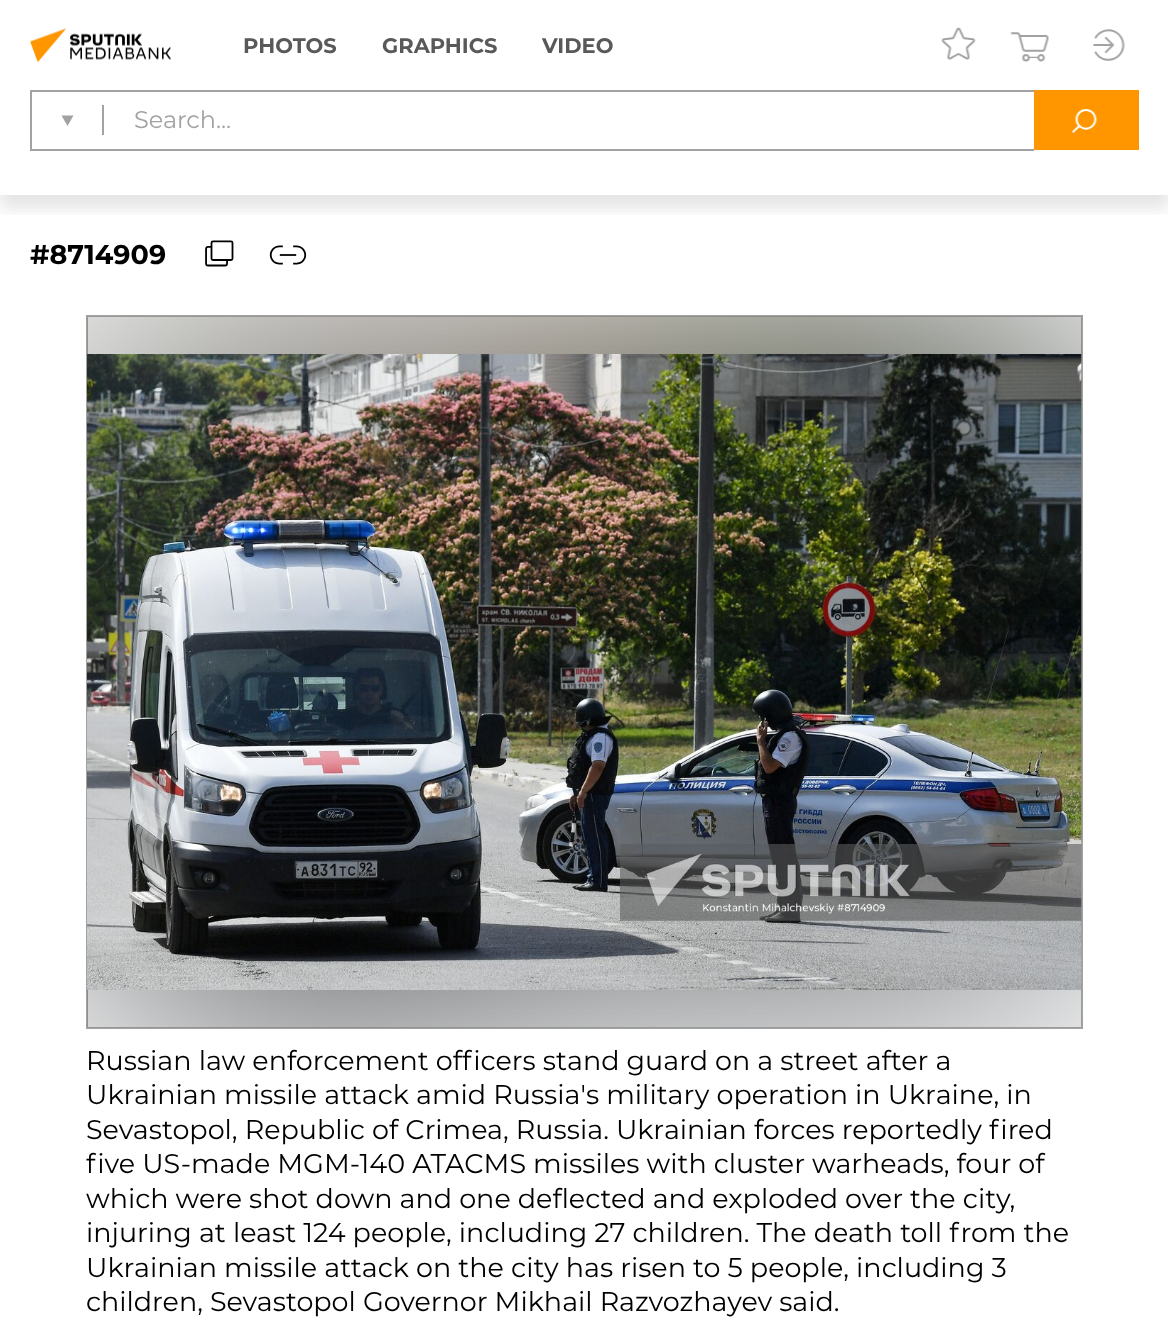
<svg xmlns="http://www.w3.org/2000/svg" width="1168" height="1317">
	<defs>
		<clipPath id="clip1"><rect x="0" y="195" width="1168" height="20" /></clipPath>
	</defs>
	<rect width="100%" height="100%" fill="#FFFFFF" />
	<g clip-path="url(#clip1)">
		<rect x="0" y="14" width="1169" height="195" fill="#000000" fill-opacity="0.1" filter="blur(7.5px)" />
	</g>
	<image x="30" y="28" width="141" height="34" href="assets/img1.png" />
	<g font-family="Montserrat" font-size="21" font-weight="700" fill="#595959">
		<text x="243" y="53">PHOTOS</text>
		<text x="382" y="53">GRAPHICS</text>
		<text x="542" y="53">VIDEO</text>
	</g>
	<image x="941" y="27" width="35" height="33" href="assets/img2.png" />
	<image x="1010" y="32" width="39" height="30" href="assets/img3.png" />
	<image x="1093" y="29" width="32" height="32" href="assets/img4.png" />
	<rect x="30" y="90" width="1004" height="2" fill="#A3A2A2" />
	<rect x="30" y="149" width="1004" height="2" fill="#A3A2A2" />
	<rect x="30" y="90" width="2" height="60" fill="#A3A2A2" />
	<path d="M61.5 115.5H73.5L67.5 126Z" fill="#A3A2A2" />
	<rect x="102" y="105" width="2" height="30" fill="#A3A2A2" />
	<text x="134" y="128" font-family="Montserrat" font-size="24" fill="#A3A2A2">Search...</text>
	<rect x="1034" y="90" width="105" height="60" fill="#FF9600" />
	<image x="1071" y="109" width="26" height="24" href="assets/img5.png" />
	<text x="30" y="264" font-family="Montserrat" font-size="27" font-weight="700" fill="#000000">#8714909</text>
	<image x="205" y="240" width="29" height="27" href="assets/img6.png" />
	<image x="269" y="245" width="38" height="20" href="assets/img7.png" />
	<rect x="87" y="316" width="995" height="712" fill="none" stroke="#A3A2A2" stroke-width="2" />
	<image x="87" y="316" width="995" height="712" href="assets/img8.png" />
	<image x="87" y="354" width="995" height="636" href="assets/img9.png" />
	<g font-family="Montserrat" font-size="27" fill="#000000">
		<text x="86" y="1070">Russian law enforcement officers stand guard on a street after a</text>
		<text x="86" y="1104">Ukrainian missile attack amid Russia's military operation in Ukraine, in</text>
		<text x="86" y="1139">Sevastopol, Republic of Crimea, Russia. Ukrainian forces reportedly fired</text>
		<text x="86" y="1173">five US-made MGM-140 ATACMS missiles with cluster warheads, four of</text>
		<text x="86" y="1208">which were shot down and one deflected and exploded over the city,</text>
		<text x="86" y="1242">injuring at least 124 people, including 27 children. The death toll from the</text>
		<text x="86" y="1277">Ukrainian missile attack on the city has risen to 5 people, including 3</text>
		<text x="86" y="1311">children, Sevastopol Governor Mikhail Razvozhayev said.</text>
	</g>
</svg>
